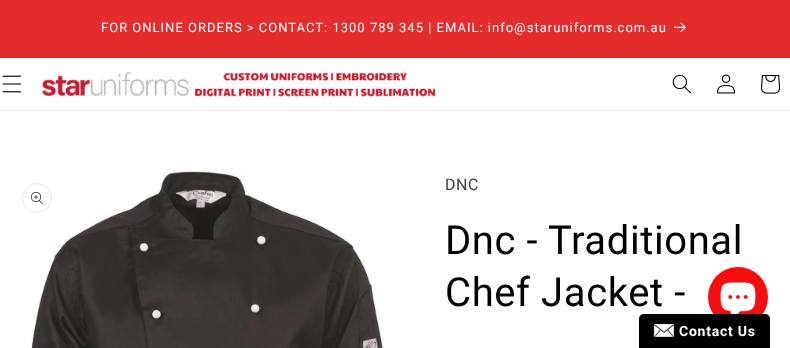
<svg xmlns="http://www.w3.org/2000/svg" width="790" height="348">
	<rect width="100%" height="100%" fill="#FFFFFF" />
	<rect x="0" y="0" width="790" height="58" fill="#E32C2B" />
	<text x="101" y="32" font-family="Roboto" font-size="13" letter-spacing="1" fill="#FFFFFF">FOR ONLINE ORDERS &gt; CONTACT: 1300 789 345 | EMAIL: info@staruniforms.com.au</text>
	<image x="674" y="22" width="12" height="11" href="assets/img1.png" />
	<rect x="0" y="110" width="790" height="1" fill="#EBEBEB" />
	<image x="2" y="75" width="20" height="18" href="assets/img2.png" />
	<image x="41" y="70" width="395" height="28" href="assets/img3.png" />
	<image x="672" y="74" width="19" height="20" href="assets/img4.png" />
	<image x="717" y="74" width="18" height="20" href="assets/img5.png" />
	<image x="761" y="75" width="20" height="19" href="assets/img6.png" />
	<image x="30" y="171" width="355" height="177" href="assets/img7.png" />
	<circle cx="37" cy="198" r="14.5" fill="none" stroke="#E6E6E5" />
	<image x="31" y="192" width="12" height="12" href="assets/img8.png" />
	<text x="445" y="190" font-family="Roboto" font-size="16" letter-spacing="0.6" fill="#404040">DNC</text>
	<g font-family="Roboto" font-size="40" letter-spacing="0.6" fill="#000000">
		<text x="445" y="254">Dnc - Traditional</text>
		<text x="445" y="306">Chef Jacket -</text>
	</g>
	<circle cx="738" cy="297" r="30" fill="#F60E0E" />
	<image x="720" y="282" width="36" height="32" href="assets/img9.png" />
	<path d="M644 314H765C768 314 770 316 770 319V348H639V319C639 316 641 314 644 314Z" fill="#000000" />
	<image x="653" y="324" width="21" height="13" href="assets/img10.png" />
	<text x="679" y="336" font-family="Roboto" font-size="14" font-weight="700" letter-spacing="0.75" fill="#FFFFFF">Contact Us</text>
</svg>
